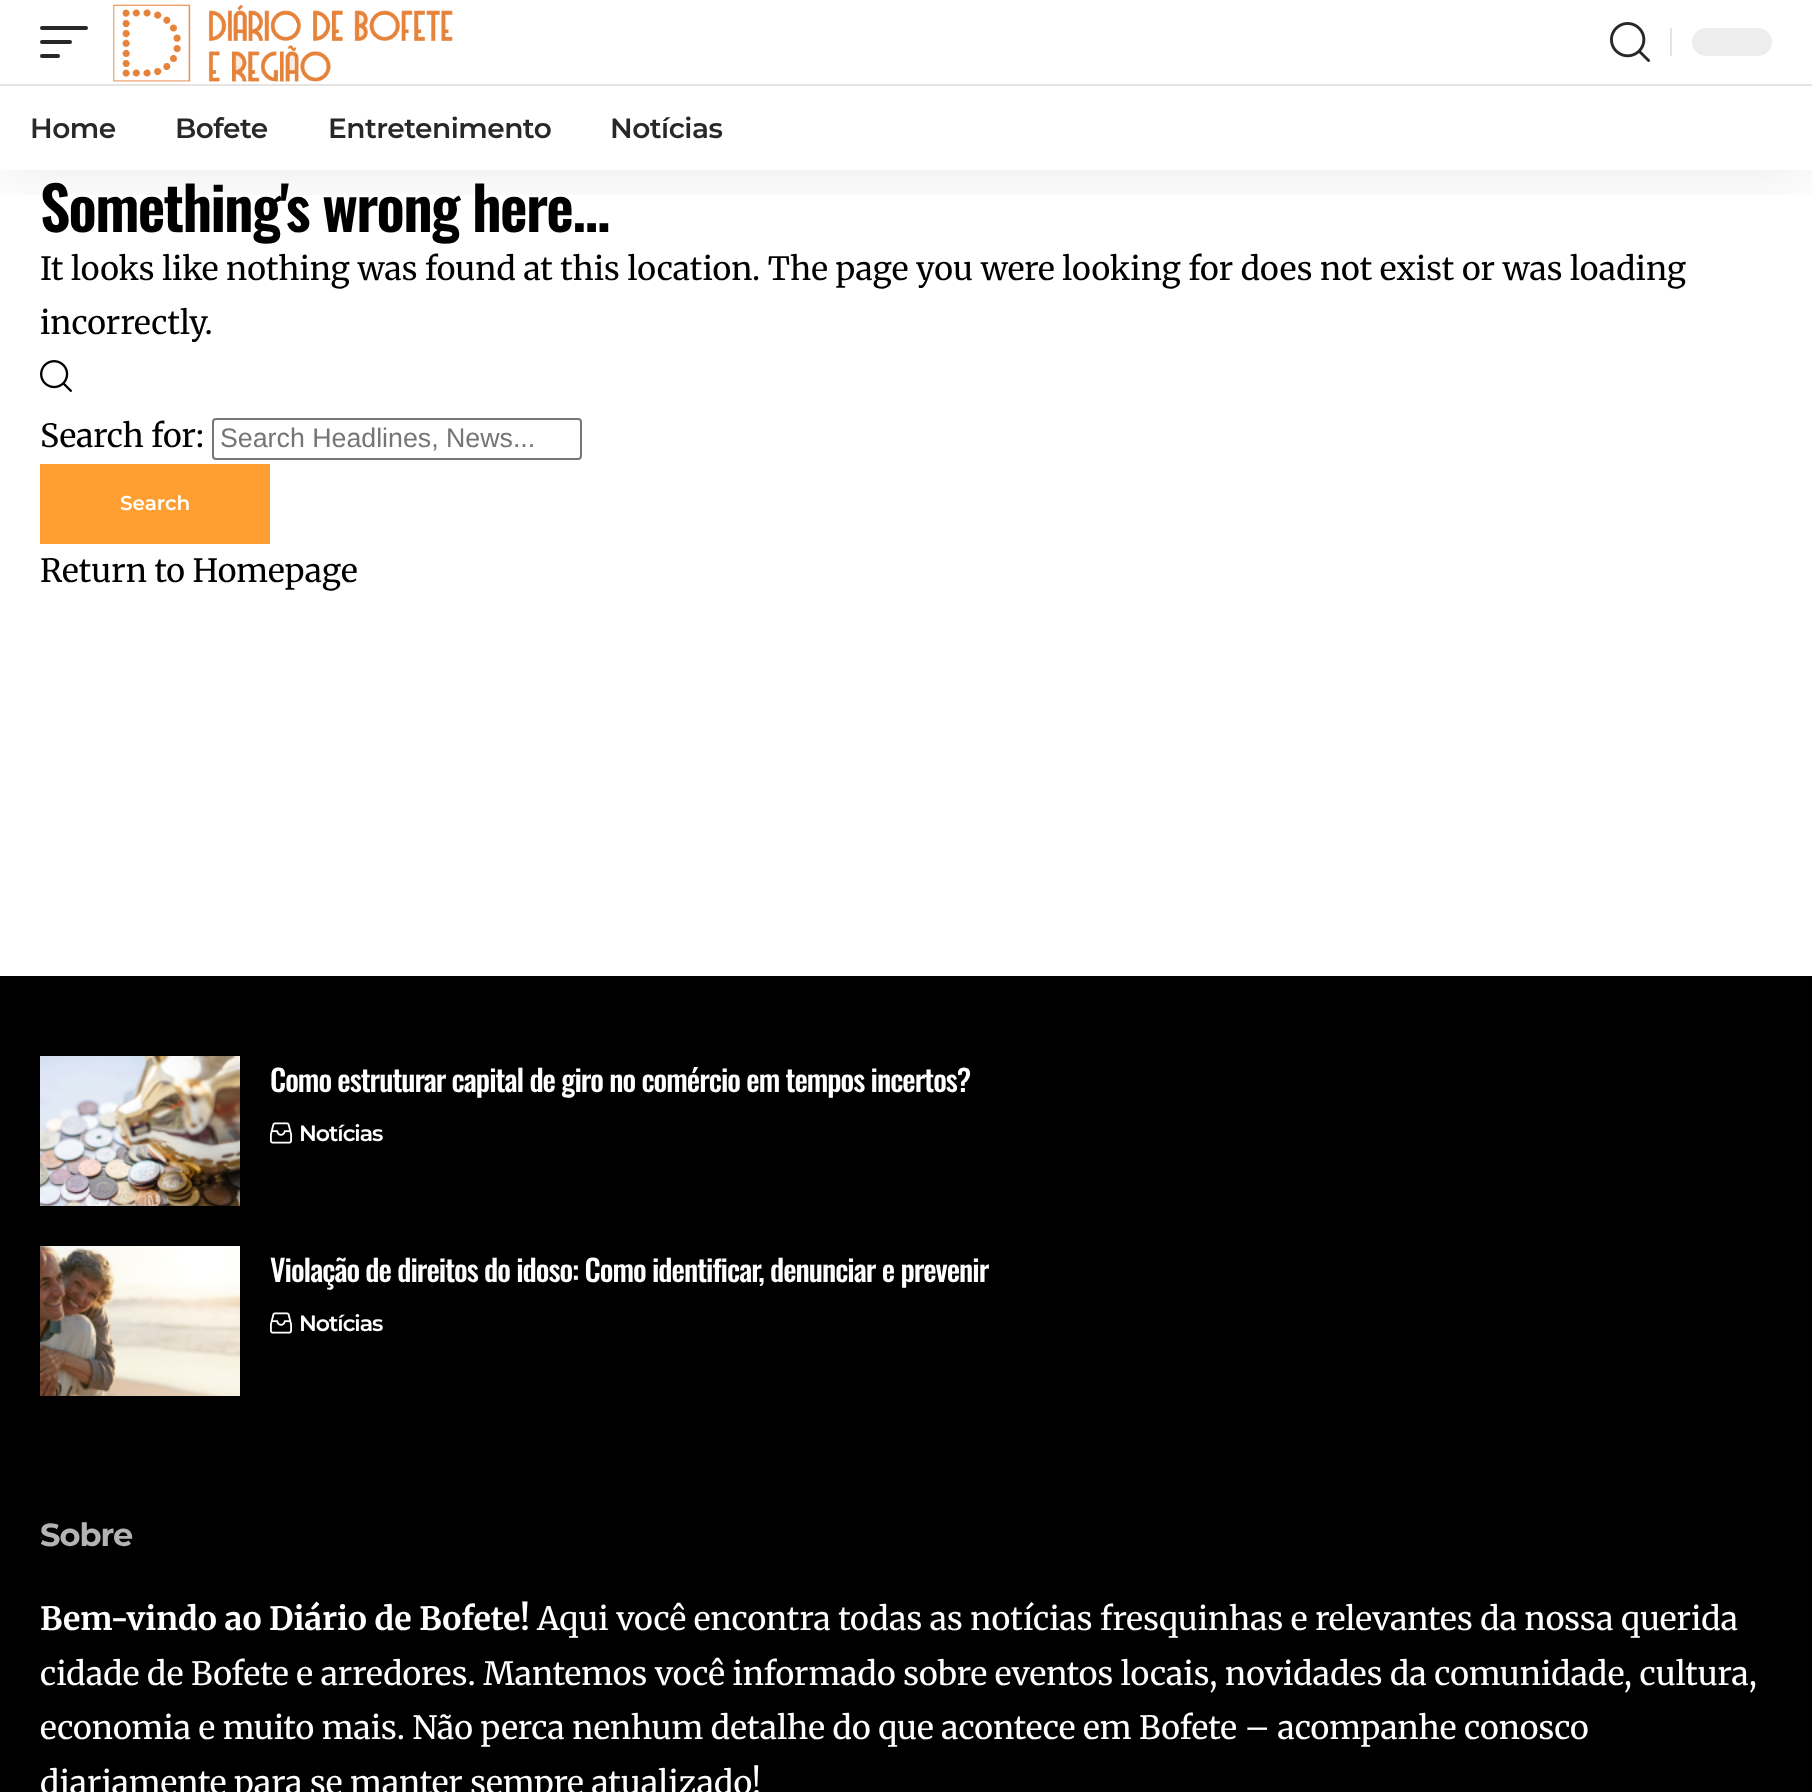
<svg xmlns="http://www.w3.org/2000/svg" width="1812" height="1792">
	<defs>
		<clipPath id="clip1"><rect x="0" y="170" width="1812" height="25" /></clipPath>
	</defs>
	<rect width="100%" height="100%" fill="#FFFFFF" />
	<g clip-path="url(#clip1)">
		<rect x="0" y="8" width="1812" height="170" fill="#000000" fill-opacity="0.07" filter="blur(30px)" />
	</g>
	<rect x="40" y="26" width="48" height="4" rx="2" fill="#282828" />
	<rect x="40" y="40" width="32" height="4" rx="2" fill="#282828" />
	<rect x="40" y="54" width="20" height="4" rx="2" fill="#282828" />
	<image x="113" y="4" width="340" height="78" href="assets/img1.png" />
	<image x="1610" y="22" width="40" height="40" href="assets/img2.png" />
	<rect x="1670" y="28" width="2" height="28" fill="#E4E4E4" />
	<rect x="1692" y="28" width="80" height="28" rx="14" fill="#EDEDED" />
	<rect x="0" y="84" width="1812" height="2" fill="#E4E4E4" />
	<g font-family="Montserrat" font-size="28" font-weight="600" letter-spacing="-0.5" fill="#282828">
		<text x="30" y="138">Home</text>
		<text x="175" y="138">Bofete</text>
		<text x="328" y="138">Entretenimento</text>
		<text x="610" y="138">Notícias</text>
	</g>
	<text x="40" y="232" font-family="Oswald" font-size="60" font-weight="600" letter-spacing="-1.7" fill="#000000">Something's wrong here...</text>
	<g font-family="Merriweather" font-size="32" fill="#000000">
		<text x="40" y="280">It looks like nothing was found at this location. The page you were looking for does not exist or was loading</text>
		<text x="40" y="334">incorrectly.</text>
	</g>
	<image x="40" y="360" width="32" height="32" href="assets/img3.png" />
	<text x="40" y="447" font-family="Merriweather" font-size="32" fill="#000000">Search for:</text>
	<rect x="213" y="419" width="368" height="40" rx="3" fill="none" stroke="#767676" stroke-width="2" />
	<text x="220" y="447" font-family="Liberation Sans" font-size="26.75" fill="#757575">Search Headlines, News...</text>
	<rect x="40" y="464" width="230" height="80" fill="#FF9F31" />
	<text x="120" y="510" font-family="Montserrat" font-size="20" font-weight="600" fill="#FFFFFF">Search</text>
	<text x="40" y="582" font-family="Merriweather" font-size="32" fill="#000000">Return to Homepage</text>
	<rect x="0" y="976" width="1812" height="816" fill="#000000" />
	<image x="40" y="1056" width="200" height="150" href="assets/img4.png" />
	<text x="270" y="1092" font-family="Oswald" font-size="30" font-weight="500" letter-spacing="-1" fill="#FFFFFF">Como estruturar capital de giro no comércio em tempos incertos?</text>
	<image x="270" y="1122" width="22" height="22" href="assets/img5.png" />
	<text x="299" y="1141" font-family="Montserrat" font-size="22" font-weight="600" letter-spacing="-1" fill="#FFFFFF">Notícias</text>
	<image x="40" y="1246" width="200" height="150" href="assets/img6.png" />
	<text x="270" y="1282" font-family="Oswald" font-size="30" font-weight="500" letter-spacing="-1" fill="#FFFFFF">Violação de direitos do idoso: Como identificar, denunciar e prevenir</text>
	<image x="270" y="1312" width="22" height="22" href="assets/img5.png" />
	<text x="299" y="1331" font-family="Montserrat" font-size="22" font-weight="600" letter-spacing="-1" fill="#FFFFFF">Notícias</text>
	<text x="40" y="1546" font-family="Montserrat" font-size="32" font-weight="700" letter-spacing="-1" fill="#B3B3B3">Sobre</text>
	<text x="40" y="1630" font-family="Merriweather" font-size="32" font-weight="700" fill="#FFFFFF">Bem-vindo ao Diário de Bofete!</text>
	<g font-family="Merriweather" font-size="32" fill="#FFFFFF">
		<text x="537" y="1630">Aqui você encontra todas as notícias fresquinhas e relevantes da nossa querida</text>
		<text x="40" y="1685">cidade de Bofete e arredores. Mantemos você informado sobre eventos locais, novidades da comunidade, cultura,</text>
		<text x="40" y="1739">economia e muito mais. Não perca nenhum detalhe do que acontece em Bofete – acompanhe conosco</text>
		<text x="40" y="1794">diariamente para se manter sempre atualizado!</text>
	</g>
</svg>
